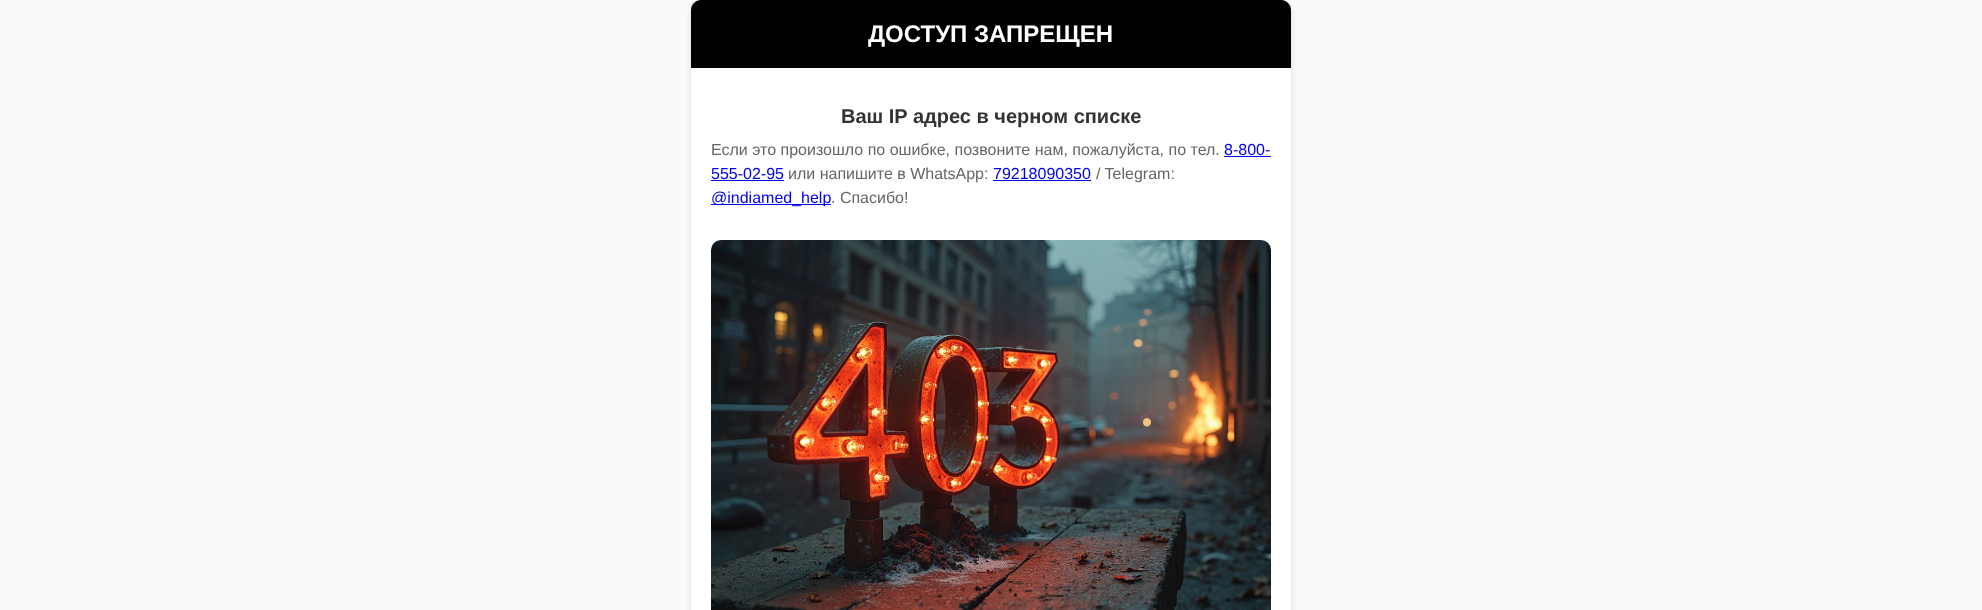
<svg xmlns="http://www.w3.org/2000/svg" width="1982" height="610">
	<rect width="100%" height="100%" fill="#F9F9F9" />
	<rect x="691" y="4" width="600" height="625" rx="10" fill="#000000" fill-opacity="0.1" filter="blur(3px)" />
	<rect x="691" y="0" width="600" height="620" rx="10" fill="#FFFFFF" />
	<path d="M701 0H1281C1286.5 0 1291 4.5 1291 10V68H691V10C691 4.5 695.5 0 701 0Z" fill="#000000" />
	<text x="868" y="42" font-family="Liberation Sans" font-size="24" font-weight="700" fill="#FFFFFF">ДОСТУП ЗАПРЕЩЕН</text>
	<text x="841" y="123" font-family="Liberation Sans" font-size="20" font-weight="700" fill="#333333">Ваш IP адрес в черном списке</text>
	<text x="711" y="155" font-family="Liberation Sans" font-size="16" fill="#666666">Если это произошло по ошибке, позвоните нам, пожалуйста, по тел.</text>
	<text x="1224" y="155" font-family="Liberation Sans" font-size="16" fill="#0000EE">8-800-</text>
	<rect x="1224" y="156" width="47" height="1" fill="#0000EE" />
	<text x="711" y="179" font-family="Liberation Sans" font-size="16" fill="#0000EE">555-02-95</text>
	<rect x="711" y="180" width="73" height="1" fill="#0000EE" />
	<text x="788" y="179" font-family="Liberation Sans" font-size="16" fill="#666666">или напишите в WhatsApp:</text>
	<text x="993" y="179" font-family="Liberation Sans" font-size="16" fill="#0000EE">79218090350</text>
	<rect x="993" y="180" width="98" height="1" fill="#0000EE" />
	<text x="1096" y="179" font-family="Liberation Sans" font-size="16" fill="#666666">/ Telegram:</text>
	<rect x="711" y="204" width="120" height="1" fill="#0000EE" />
	<text x="711" y="203" font-family="Liberation Sans" font-size="16" fill="#0000EE">@indiamed_help</text>
	<text x="831" y="203" font-family="Liberation Sans" font-size="16" fill="#666666">. Спасибо!</text>
	<image x="711" y="240" width="560" height="370" href="assets/img1.png" />
</svg>
